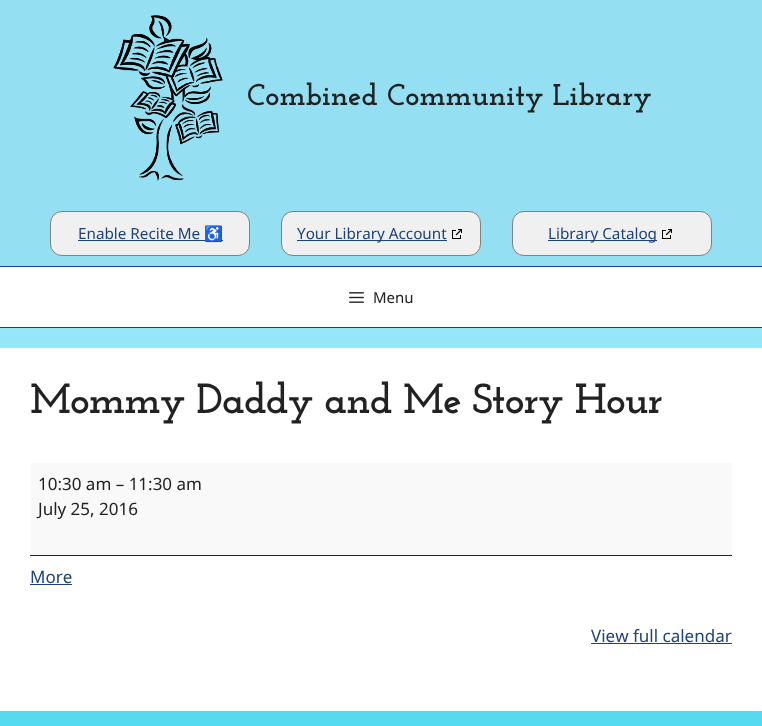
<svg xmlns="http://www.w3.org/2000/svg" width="762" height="726">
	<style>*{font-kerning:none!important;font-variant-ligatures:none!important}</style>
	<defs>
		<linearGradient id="g1" gradientUnits="userSpaceOnUse" x1="381" y1="0" x2="381" y2="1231"><stop offset="0" stop-color="#CDF3FE" /><stop offset="1" stop-color="#00C8E7" /></linearGradient>
	</defs>
	<rect width="100%" height="100%" fill="#FFFFFF" />
	<rect x="0" y="328" width="762" height="398" fill="url(#g1)" />
	<rect x="0" y="0" width="762" height="266" fill="#94DFF1" />
	<image x="113" y="15" width="110" height="166" href="assets/img1.png" />
	<text x="247" y="105" font-family="Josefin Slab" font-size="30" font-weight="700" fill="#222222">Combined Community Library</text>
	<rect x="50.5" y="211.5" width="199" height="44" rx="11.5" fill="#F0F0F0" stroke="#808080" />
	<text x="78" y="239" font-family="Noto Sans" font-size="15.25" fill="#1D4277">Enable Recite Me</text>
	<rect x="78" y="240" width="145" height="1" fill="#1D4277" />
	<text x="204" y="239" font-family="Noto Color Emoji" font-size="15.25" fill="#1D4277">♿</text>
	<rect x="281.5" y="211.5" width="199" height="44" rx="11.5" fill="#F0F0F0" stroke="#808080" />
	<rect x="297" y="240" width="150" height="1" fill="#1D4277" />
	<text x="297" y="239" font-family="Noto Sans" font-size="15.25" fill="#1D4277">Your Library Account</text>
	<image x="452" y="229" width="10" height="10" href="assets/img2.png" />
	<rect x="512.5" y="211.5" width="199" height="44" rx="11.5" fill="#F0F0F0" stroke="#808080" />
	<rect x="548" y="240" width="109" height="1" fill="#1D4277" />
	<text x="548" y="239" font-family="Noto Sans" font-size="15.25" fill="#1D4277">Library Catalog</text>
	<image x="662" y="229" width="10" height="10" href="assets/img2.png" />
	<rect x="0" y="266" width="762" height="1" fill="#1D4177" />
	<rect x="0" y="327" width="762" height="1" fill="#1D4177" />
	<image x="349" y="292" width="15" height="11" href="assets/img3.png" />
	<text x="373" y="303" font-family="Noto Sans" font-size="15" fill="#222222">Menu</text>
	<rect x="0" y="348" width="762" height="363" fill="#FFFFFF" />
	<text x="30" y="413" font-family="Josefin Slab" font-size="42" font-weight="700" letter-spacing="-1" fill="#222222">Mommy Daddy and</text>
	<text x="403" y="413" font-family="Josefin Slab" font-size="42" font-weight="700" letter-spacing="-1" fill="#222222">Me Story Hour</text>
	<rect x="30" y="463" width="702" height="92" fill="#F9F9F9" />
	<rect x="30" y="555" width="702" height="1" fill="#222222" />
	<g font-family="Noto Sans" font-size="17" fill="#222222">
		<text x="38" y="490">10:30 am – 11:30 am</text>
		<text x="38" y="515">July 25, 2016</text>
	</g>
	<text x="30" y="583" font-family="Noto Sans" font-size="17" fill="#1D4277">More</text>
	<rect x="30" y="584" width="42" height="1" fill="#1D4277" />
	<text x="591" y="642" font-family="Noto Sans" font-size="17" fill="#1D4277">View full calendar</text>
	<rect x="591" y="643" width="141" height="1" fill="#1D4277" />
</svg>
